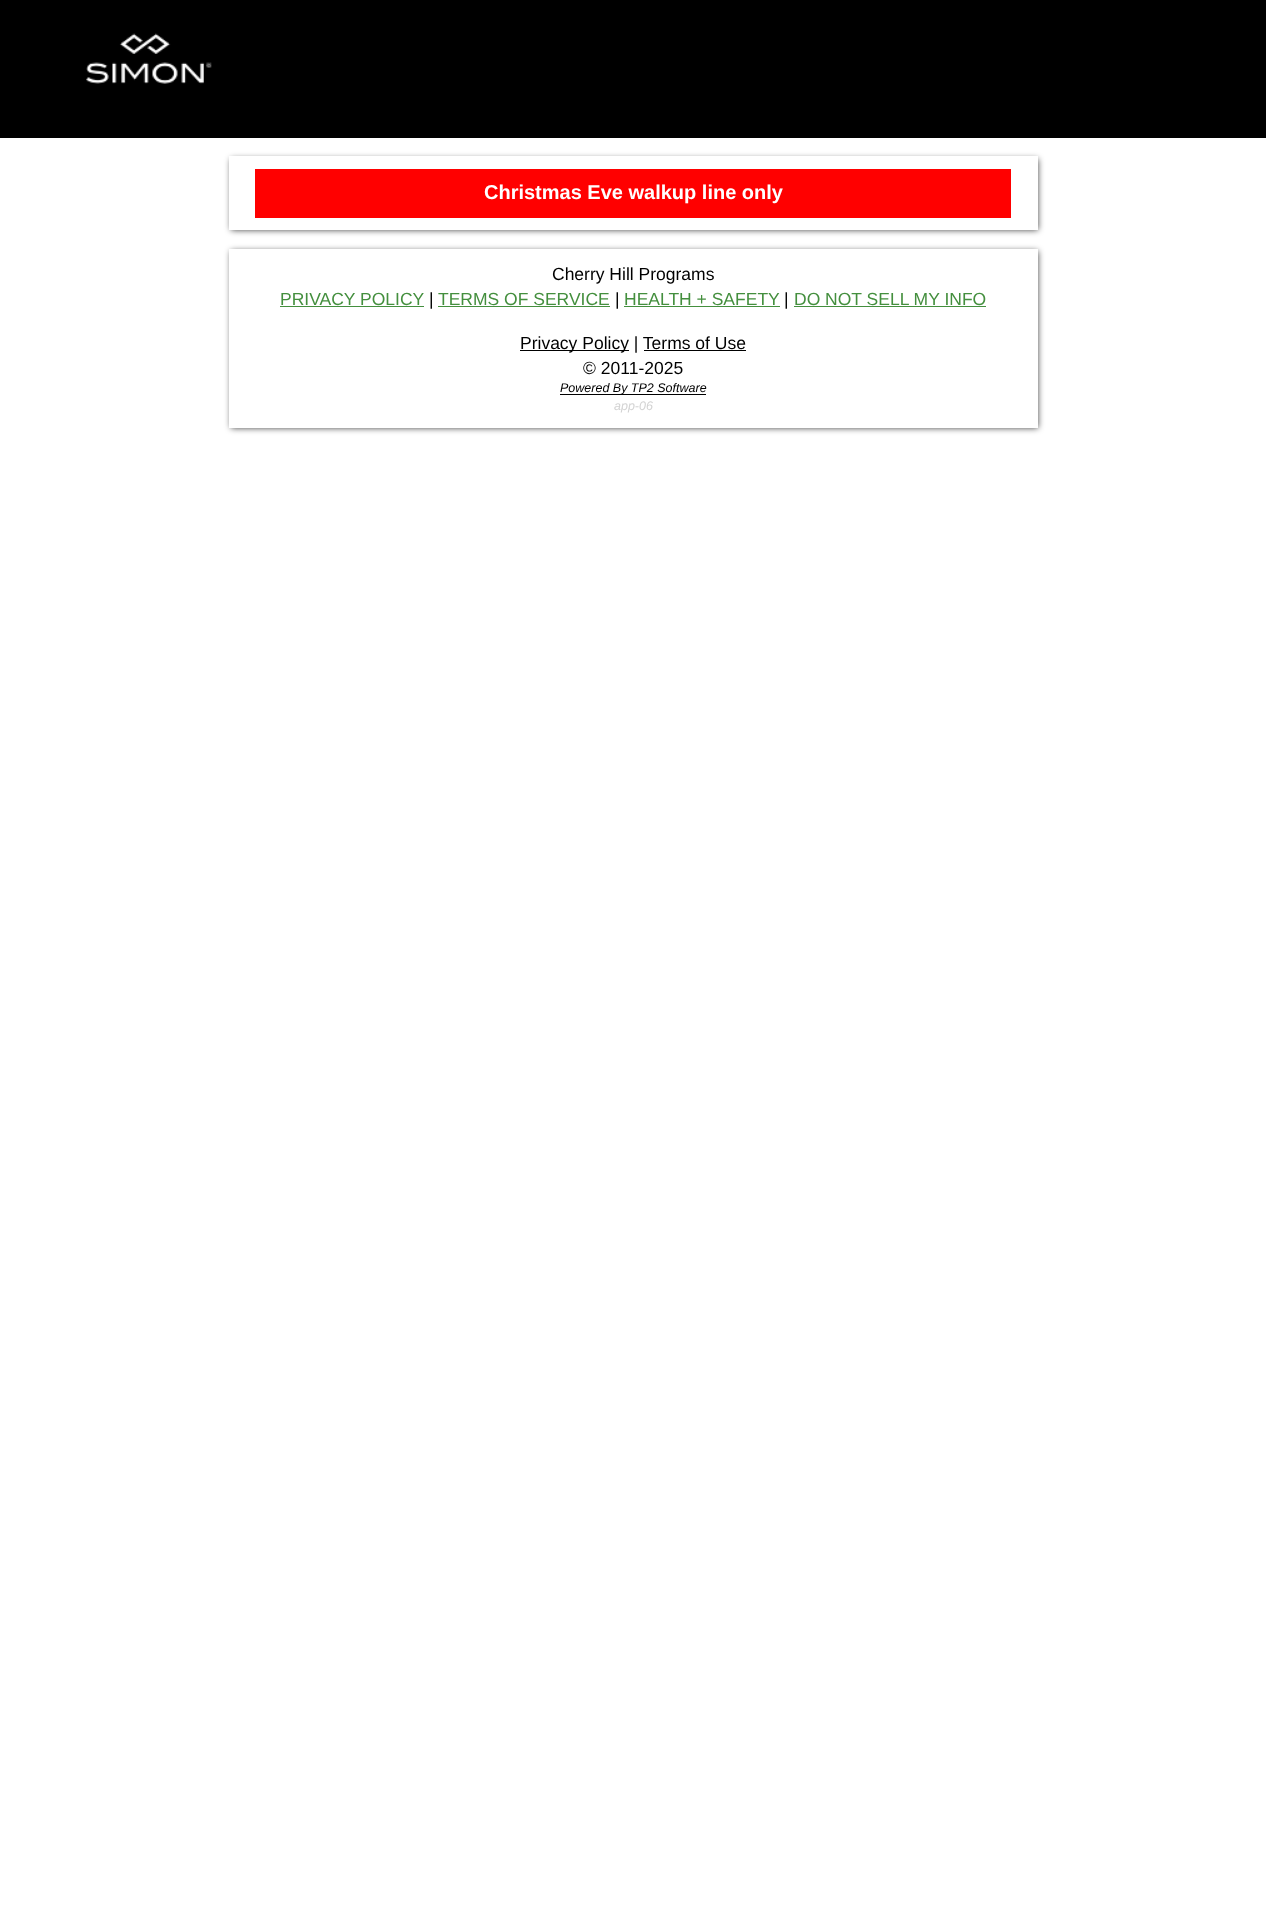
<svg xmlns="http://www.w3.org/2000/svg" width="1266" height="1922">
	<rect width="100%" height="100%" fill="#FFFFFF" />
	<rect x="0" y="0" width="1266" height="138" fill="#000000" />
	<image x="86" y="33" width="126" height="51" href="assets/img1.png" />
	<rect x="231" y="159" width="807" height="71" fill="#000000" fill-opacity="0.75" filter="blur(3px)" />
	<rect x="229" y="156" width="809" height="74" fill="#FFFFFF" />
	<rect x="255" y="169" width="756" height="49" fill="#FF0000" />
	<text x="484" y="199" font-family="Liberation Sans" font-size="20" font-weight="700" fill="#FFFFFF">Christmas Eve walkup line only</text>
	<rect x="231" y="251" width="807" height="177" fill="#000000" fill-opacity="0.75" filter="blur(3px)" />
	<rect x="229" y="249" width="809" height="179" fill="#FFFFFF" />
	<text x="552" y="280" font-family="Liberation Sans" font-size="17.5" fill="#000000">Cherry Hill Programs</text>
	<text x="280" y="305" font-family="Liberation Sans" font-size="17.5" fill="#448F3E">PRIVACY POLICY</text>
	<rect x="280" y="306" width="144" height="1" fill="#448F3E" />
	<text x="429" y="305" font-family="Liberation Sans" font-size="17.5" fill="#000000">|</text>
	<text x="438" y="305" font-family="Liberation Sans" font-size="17.5" fill="#448F3E">TERMS OF SERVICE</text>
	<rect x="438" y="306" width="172" height="1" fill="#448F3E" />
	<text x="615" y="305" font-family="Liberation Sans" font-size="17.5" fill="#000000">|</text>
	<text x="624" y="305" font-family="Liberation Sans" font-size="17.5" fill="#448F3E">HEALTH + SAFETY</text>
	<rect x="624" y="306" width="156" height="1" fill="#448F3E" />
	<text x="784" y="305" font-family="Liberation Sans" font-size="17.5" fill="#000000">|</text>
	<text x="794" y="305" font-family="Liberation Sans" font-size="17.5" fill="#448F3E">DO NOT SELL MY INFO</text>
	<rect x="794" y="306" width="192" height="1" fill="#448F3E" />
	<rect x="520" y="350" width="109" height="1" fill="#000000" />
	<text x="520" y="349" font-family="Liberation Sans" font-size="17.5" fill="#000000">Privacy Policy | Terms of Use</text>
	<rect x="644" y="350" width="102" height="1" fill="#000000" />
	<text x="583" y="374" font-family="Liberation Sans" font-size="17.5" fill="#000000">© 2011-2025</text>
	<rect x="560" y="394" width="146" height="1" fill="#000000" />
	<text x="560" y="392" font-family="Liberation Sans" font-size="12.5" font-style="italic" fill="#000000">Powered By TP2 Software</text>
	<text x="614" y="410" font-family="Liberation Sans" font-size="12.5" font-style="italic" fill="#D3D3D3">app-06</text>
</svg>
